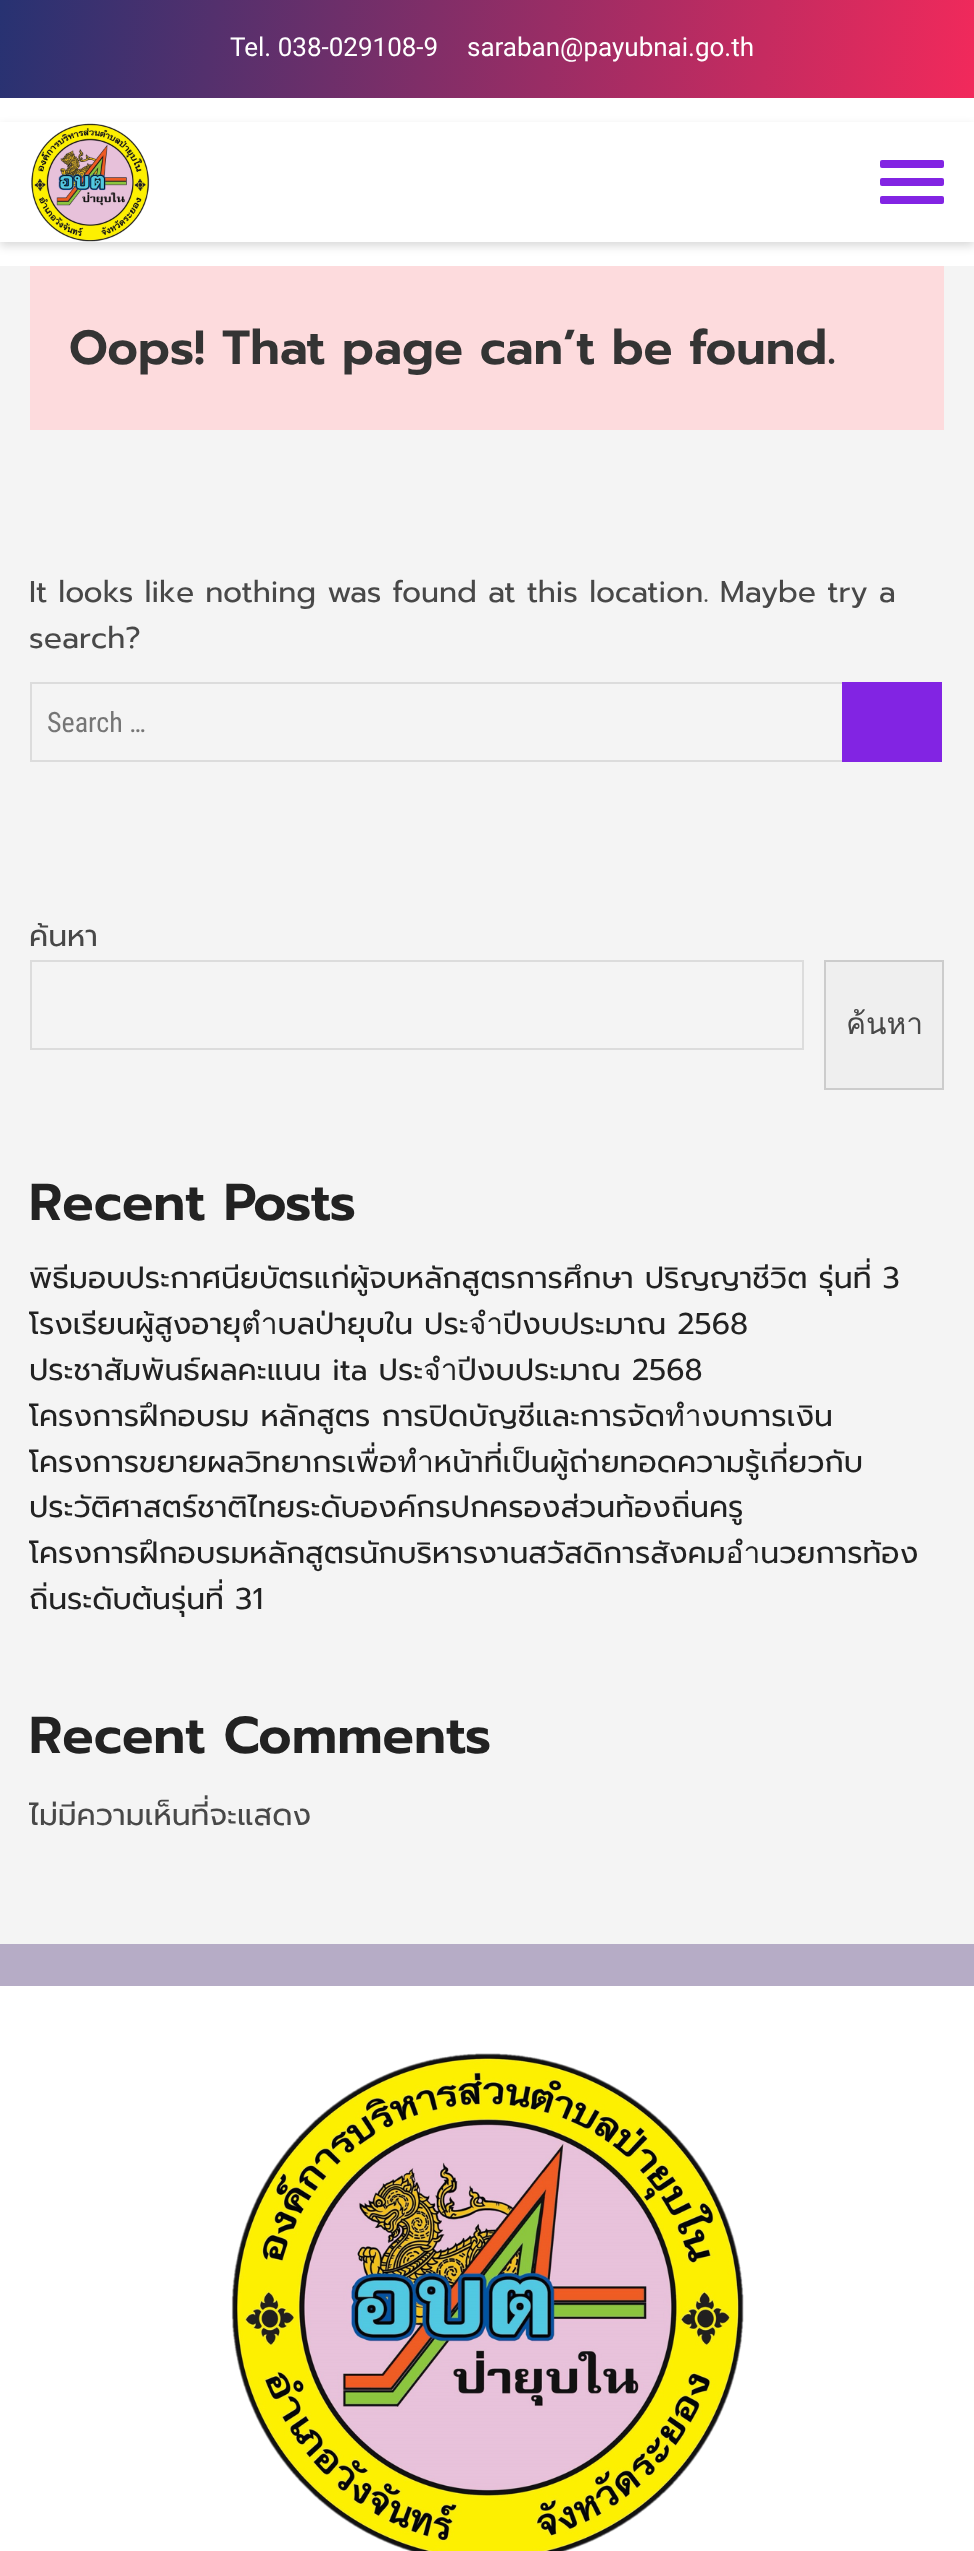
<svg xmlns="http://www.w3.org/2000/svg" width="974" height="2551">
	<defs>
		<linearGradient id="g1" gradientUnits="userSpaceOnUse" x1="4.3" y1="-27" x2="970" y2="125"><stop offset="0" stop-color="#273272" /><stop offset="1" stop-color="#F2295B" /></linearGradient>
		<clipPath id="clip1"><path d="M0 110H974V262H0ZM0 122H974V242H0Z" clip-rule="evenodd" /></clipPath>
	</defs>
	<rect width="100%" height="100%" fill="#F4F4F4" />
	<rect x="0" y="0" width="974" height="98" fill="url(#g1)" />
	<g font-family="Roboto" font-size="26" fill="#FFFFFF">
		<text x="230" y="56">Tel. 038-029108-9</text>
		<text x="467" y="56">saraban@payubnai.go.th</text>
	</g>
	<rect x="0" y="98" width="974" height="168" fill="#FFFFFF" />
	<g clip-path="url(#clip1)">
		<rect x="0" y="126" width="974" height="120" fill="#000000" fill-opacity="0.15" filter="blur(5px)" />
	</g>
	<image x="31" y="123" width="119" height="119" href="assets/img1.png" />
	<rect x="880" y="160" width="64" height="8" rx="2" fill="#8224E3" />
	<rect x="880" y="178" width="64" height="8" rx="2" fill="#8224E3" />
	<rect x="880" y="196" width="64" height="8" rx="2" fill="#8224E3" />
	<rect x="30" y="266" width="914" height="164" fill="#FDDBDD" />
	<text x="69" y="364" font-family="Prompt" font-size="48" font-weight="600" fill="#343434">Oops! That page can’t be found.</text>
	<g font-family="Prompt" font-size="30" fill="#484848">
		<text x="29" y="602">It looks like nothing was found at this location. Maybe try a</text>
		<text x="29" y="648">search?</text>
	</g>
	<rect x="31" y="683" width="812" height="78" fill="none" stroke="#DCDCDC" stroke-width="2" />
	<text x="47" y="732" font-family="Roboto Condensed" font-size="28" fill="#757575">Search …</text>
	<rect x="842" y="682" width="100" height="80" fill="#8224E3" />
	<text x="29" y="946" font-family="Prompt" font-size="30" fill="#484848">ค้นหา</text>
	<rect x="31" y="961" width="772" height="88" fill="none" stroke="#DCDCDC" stroke-width="2" />
	<rect x="825" y="961" width="118" height="128" fill="#EFEFEF" stroke="#CCCCCC" stroke-width="2" />
	<text x="846" y="1034" font-family="Loma" font-size="30" fill="#484848">ค้นหา</text>
	<text x="29" y="1220" font-family="Prompt" font-size="52" font-weight="600" fill="#222222">Recent Posts</text>
	<g font-family="Prompt" font-size="30" fill="#222222">
		<text x="29" y="1288">พิธีมอบประกาศนียบัตรแก่ผู้จบหลักสูตรการศึกษา ปริญญาชีวิต รุ่นที่ 3</text>
		<text x="29" y="1334">โรงเรียนผู้สูงอายุตำบลป่ายุบใน ประจำปีงบประมาณ 2568</text>
		<text x="29" y="1380">ประชาสัมพันธ์ผลคะแนน ita ประจำปีงบประมาณ 2568</text>
		<text x="29" y="1426">โครงการฝึกอบรม หลักสูตร การปิดบัญชีและการจัดทำงบการเงิน</text>
		<text x="29" y="1472">โครงการขยายผลวิทยากรเพื่อทำหน้าที่เป็นผู้ถ่ายทอดความรู้เกี่ยวกับ</text>
		<text x="29" y="1517">ประวัติศาสตร์ชาติไทยระดับองค์กรปกครองส่วนท้องถิ่นครู</text>
		<text x="29" y="1563">โครงการฝึกอบรมหลักสูตรนักบริหารงานสวัสดิการสังคมอำนวยการท้อง</text>
		<text x="29" y="1609">ถิ่นระดับต้นรุ่นที่ 31</text>
	</g>
	<text x="29" y="1753" font-family="Prompt" font-size="52" font-weight="600" fill="#222222">Recent Comments</text>
	<text x="29" y="1825" font-family="Prompt" font-size="30" fill="#484848">ไม่มีความเห็นที่จะแสดง</text>
	<rect x="0" y="1944" width="974" height="42" fill="#B6ACC6" />
	<rect x="0" y="1986" width="974" height="565" fill="#FFFFFF" />
	<image x="231" y="2053" width="513" height="498" href="assets/img2.png" />
</svg>
